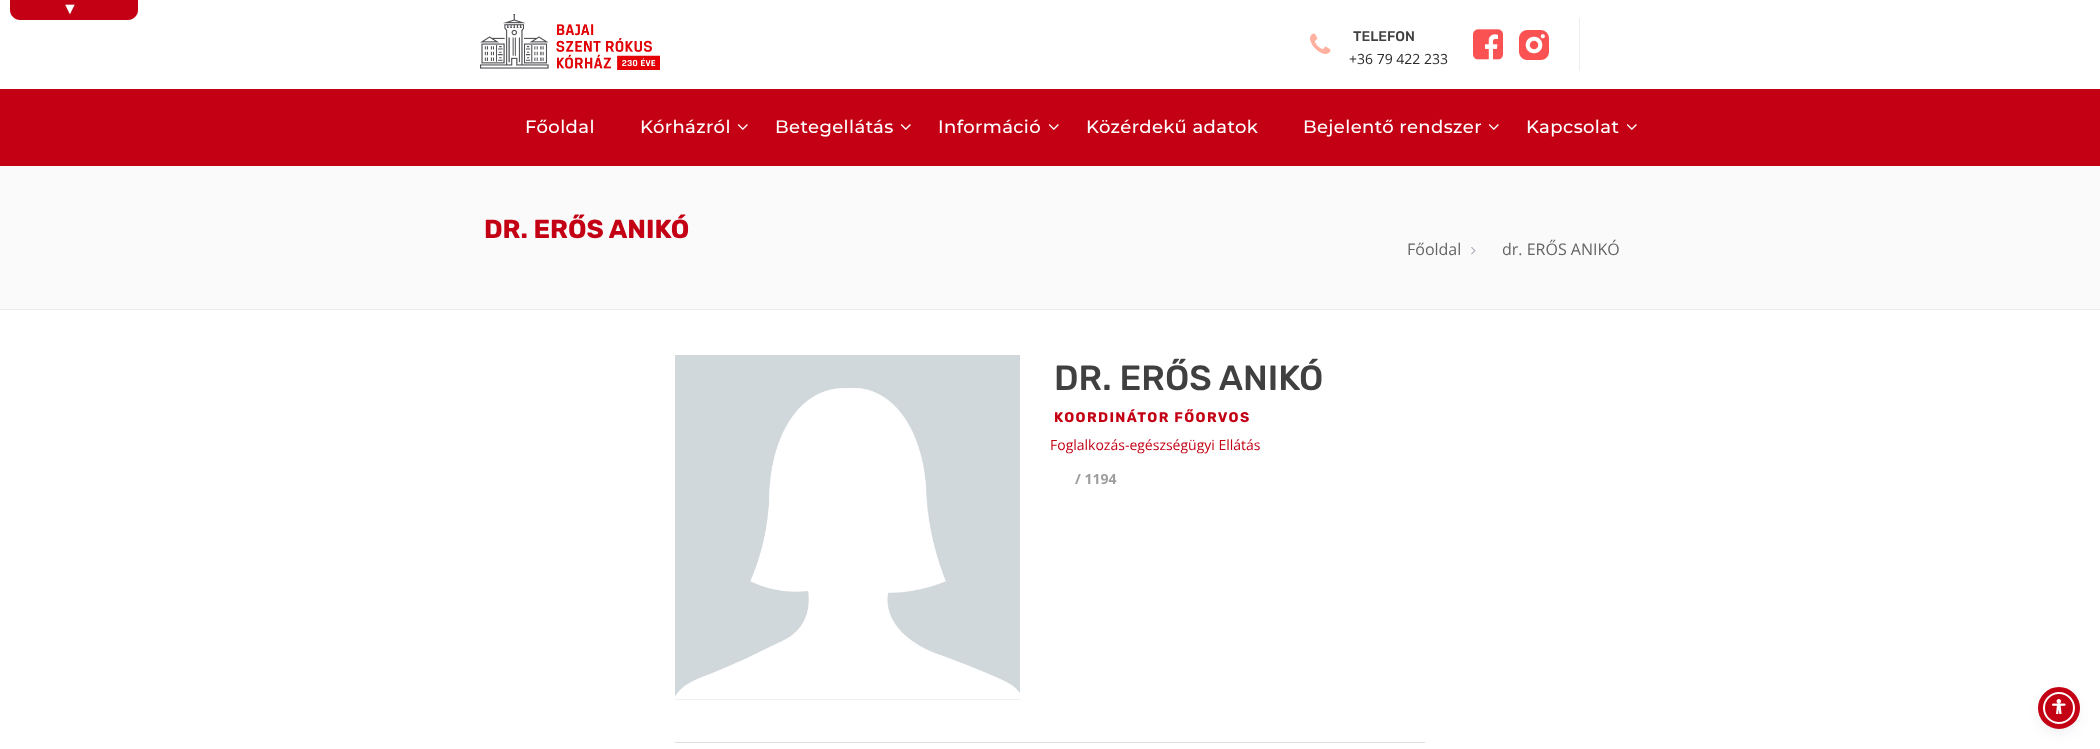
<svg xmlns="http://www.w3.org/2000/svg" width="2100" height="749">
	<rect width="100%" height="100%" fill="#FFFFFF" />
	<path d="M10-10H138V10C138 15.5 133.5 20 128 20H20C14.5 20 10 15.5 10 10Z" fill="#C30014" />
	<text x="62" y="14" font-family="Liberation Sans" font-size="16" fill="#FFFFFF">▼</text>
	<image x="480" y="14" width="180" height="56" href="assets/img1.png" />
	<image x="1310" y="33" width="21" height="21" href="assets/img2.png" />
	<text x="1353" y="41" font-family="Rubik" font-size="14" font-weight="500" fill="#404041">TELEFON</text>
	<text x="1349" y="64" font-family="Open Sans" font-size="14" fill="#292929">+36 79 422 233</text>
	<image x="1473" y="29" width="30" height="31" href="assets/img3.png" />
	<image x="1519" y="30" width="30" height="30" href="assets/img4.png" />
	<rect x="1579" y="18" width="1" height="53" fill="#EDEDED" />
	<rect x="0" y="89" width="2100" height="77" fill="#C30014" />
	<g font-family="Montserrat" font-size="18" font-weight="500" letter-spacing="0.4" fill="#FFFFFF">
		<text x="525" y="133">Főoldal</text>
		<text x="640" y="133">Kórházról</text>
	</g>
	<image x="737" y="124" width="11" height="6" href="assets/img5.png" />
	<text x="775" y="133" font-family="Montserrat" font-size="18" font-weight="500" letter-spacing="0.4" fill="#FFFFFF">Betegellátás</text>
	<image x="900" y="124" width="11" height="6" href="assets/img5.png" />
	<text x="938" y="133" font-family="Montserrat" font-size="18" font-weight="500" letter-spacing="0.4" fill="#FFFFFF">Információ</text>
	<image x="1048" y="124" width="11" height="6" href="assets/img5.png" />
	<g font-family="Montserrat" font-size="18" font-weight="500" letter-spacing="0.4" fill="#FFFFFF">
		<text x="1086" y="133">Közérdekű adatok</text>
		<text x="1303" y="133">Bejelentő rendszer</text>
	</g>
	<image x="1488" y="124" width="11" height="6" href="assets/img5.png" />
	<text x="1526" y="133" font-family="Montserrat" font-size="18" font-weight="500" letter-spacing="0.4" fill="#FFFFFF">Kapcsolat</text>
	<image x="1626" y="124" width="11" height="6" href="assets/img5.png" />
	<rect x="0" y="166" width="2100" height="143" fill="#FAFAFA" />
	<rect x="0" y="309" width="2100" height="1" fill="#EEEEEE" />
	<text x="484" y="238" font-family="Rubik" font-size="26" font-weight="700" fill="#C30014">DR. ERŐS ANIKÓ</text>
	<text x="1407" y="255" font-family="Open Sans" font-size="16" fill="#646464">Főoldal</text>
	<image x="1471" y="247" width="5" height="8" href="assets/img6.png" />
	<text x="1502" y="255" font-family="Open Sans" font-size="16" fill="#646464">dr. ERŐS ANIKÓ</text>
	<image x="675" y="355" width="345" height="342" href="assets/img7.png" />
	<rect x="675" y="699" width="345" height="1" fill="#F0F0F0" />
	<text x="1054" y="390" font-family="Rubik" font-size="35" font-weight="500" fill="#404041">DR. ERŐS ANIKÓ</text>
	<text x="1054" y="422" font-family="Rubik" font-size="14" font-weight="700" letter-spacing="1.4" fill="#C30014">KOORDINÁTOR FŐORVOS</text>
	<text x="1050" y="450" font-family="Open Sans" font-size="14" fill="#C30014">Foglalkozás-egészségügyi Ellátás</text>
	<text x="1075" y="484" font-family="Open Sans" font-size="14" font-weight="700" fill="#9E9E9E">/ 1194</text>
	<rect x="675" y="742" width="750" height="1" fill="#DFDFDF" />
	<rect x="2043" y="694" width="32" height="32" rx="16" fill="#5D6494" fill-opacity="0.2" filter="blur(2px)" />
	<rect x="2043" y="697" width="32" height="32" rx="16" fill="#252C61" fill-opacity="0.15" filter="blur(7.5px)" />
	<circle cx="2059" cy="708" r="15" fill="#C30014" stroke="#FFFFFF" stroke-width="2" />
	<circle cx="2059" cy="708" r="18.5" fill="none" stroke="#C30014" stroke-width="5" />
	<image x="2052" y="699" width="14" height="15" href="assets/img8.png" />
</svg>
